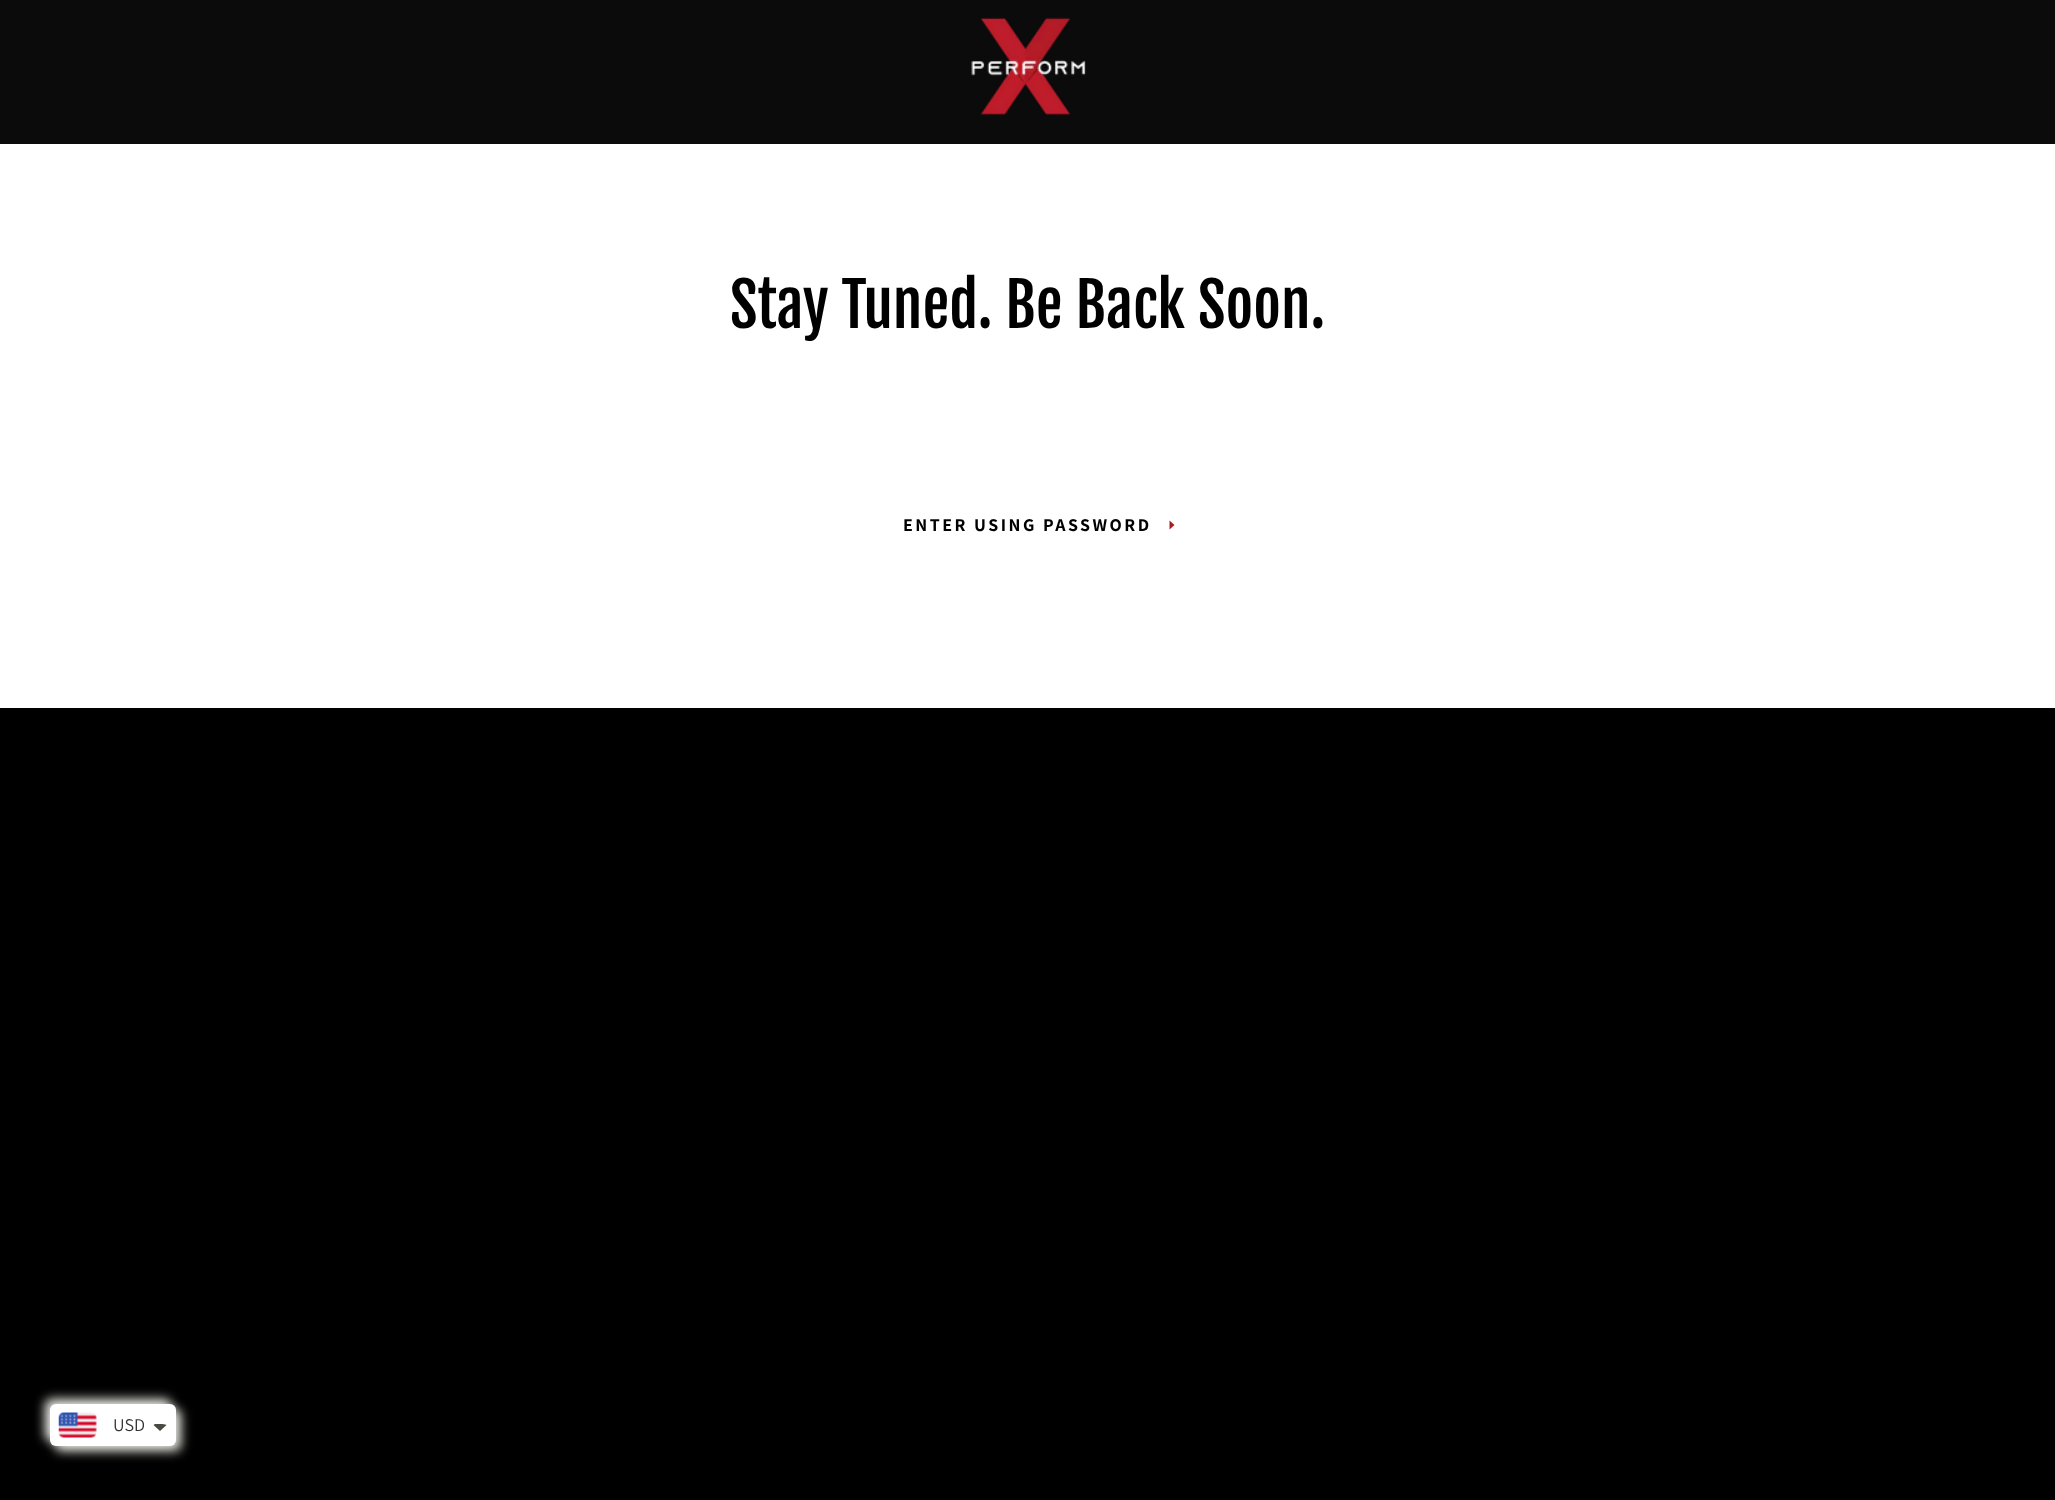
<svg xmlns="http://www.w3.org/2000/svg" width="2055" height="1500">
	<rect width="100%" height="100%" fill="#000000" />
	<rect x="0" y="144" width="2055" height="564" fill="#FFFFFF" />
	<rect x="0" y="0" width="2055" height="144" fill="#0B0B0B" />
	<image x="971" y="17" width="115" height="99" href="assets/img1.png" />
	<text x="730" y="328" font-family="Fjalla One" font-size="60" fill="#000000">Stay Tuned. Be Back Soon.</text>
	<text x="903" y="531" font-family="Assistant" font-size="18" font-weight="700" letter-spacing="2.5" fill="#000000">ENTER USING PASSWORD</text>
	<path d="M1174.5 525L1169.5 529.5V520.5Z" fill="#AA1C22" />
	<rect x="45" y="1399" width="126" height="42" rx="6" fill="#E8E8E2" filter="blur(5.5px)" />
	<rect x="55" y="1409" width="126" height="42" rx="6" fill="#E8E8E2" filter="blur(5.5px)" />
	<rect x="50" y="1404" width="126" height="42" rx="6" fill="#FFFFFF" />
	<image x="58" y="1412" width="39" height="26" href="assets/img2.png" />
	<text x="113" y="1431" font-family="Assistant" font-size="18" fill="#333333">USD</text>
	<path d="M156 1424C158.5 1424 164.5 1423.5 166.5 1425L160 1431L153.5 1425C154 1424.5 155 1424 156 1424Z" fill="#474942" />
</svg>
